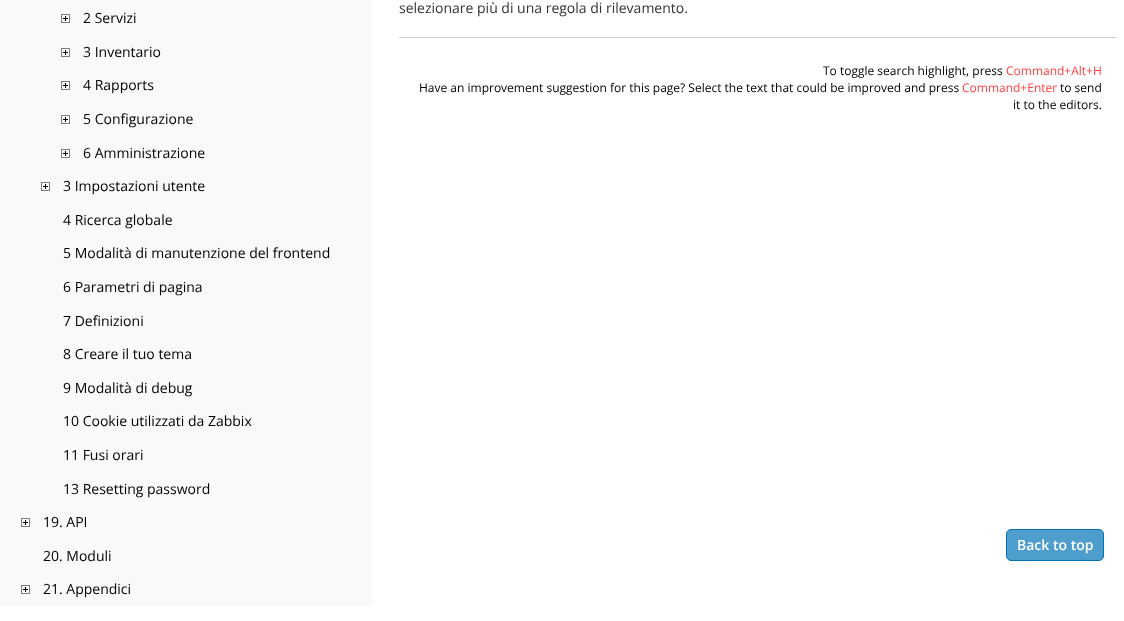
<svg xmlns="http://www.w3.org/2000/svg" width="1124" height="621">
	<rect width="100%" height="100%" fill="#FFFFFF" />
	<rect x="0" y="0" width="372" height="606" fill="#F9F9F9" />
	<image x="61" y="14" width="9" height="9" href="assets/img1.png" />
	<text x="83" y="23" font-family="Open Sans" font-size="14" fill="#000000">2 Servizi</text>
	<image x="61" y="48" width="9" height="9" href="assets/img1.png" />
	<text x="83" y="57" font-family="Open Sans" font-size="14" fill="#000000">3 Inventario</text>
	<image x="61" y="81" width="9" height="9" href="assets/img1.png" />
	<text x="83" y="90" font-family="Open Sans" font-size="14" fill="#000000">4 Rapports</text>
	<image x="61" y="115" width="9" height="9" href="assets/img1.png" />
	<text x="83" y="124" font-family="Open Sans" font-size="14" fill="#000000">5 Configurazione</text>
	<image x="61" y="149" width="9" height="9" href="assets/img1.png" />
	<text x="83" y="158" font-family="Open Sans" font-size="14" fill="#000000">6 Amministrazione</text>
	<image x="41" y="182" width="9" height="9" href="assets/img1.png" />
	<g font-family="Open Sans" font-size="14" fill="#000000">
		<text x="63" y="191">3 Impostazioni utente</text>
		<text x="63" y="225">4 Ricerca globale</text>
		<text x="63" y="258">5 Modalità di manutenzione del frontend</text>
		<text x="63" y="292">6 Parametri di pagina</text>
		<text x="63" y="326">7 Definizioni</text>
		<text x="63" y="359">8 Creare il tuo tema</text>
		<text x="63" y="393">9 Modalità di debug</text>
		<text x="63" y="426">10 Cookie utilizzati da Zabbix</text>
		<text x="63" y="460">11 Fusi orari</text>
		<text x="63" y="494">13 Resetting password</text>
	</g>
	<image x="21" y="518" width="9" height="9" href="assets/img1.png" />
	<g font-family="Open Sans" font-size="14" fill="#000000">
		<text x="43" y="527">19. API</text>
		<text x="43" y="561">20. Moduli</text>
	</g>
	<image x="21" y="585" width="9" height="9" href="assets/img1.png" />
	<text x="43" y="594" font-family="Open Sans" font-size="14" fill="#000000">21. Appendici</text>
	<text x="399" y="13" font-family="Open Sans" font-size="14" fill="#333333">selezionare più di una regola di rilevamento.</text>
	<rect x="399" y="37" width="718" height="1" fill="#D2D2D2" />
	<text x="823" y="75" font-family="Open Sans" font-size="12" fill="#000000">To toggle search highlight, press</text>
	<text x="1006" y="75" font-family="Open Sans" font-size="12" fill="#FF4040">Command+Alt+H</text>
	<text x="419" y="92" font-family="Open Sans" font-size="12" fill="#000000">Have an improvement suggestion for this page? Select the text that could be improved and press</text>
	<text x="962" y="92" font-family="Open Sans" font-size="12" fill="#FF4040">Command+Enter</text>
	<g font-family="Open Sans" font-size="12" fill="#000000">
		<text x="1060" y="92">to send</text>
		<text x="1013" y="109">it to the editors.</text>
	</g>
	<rect x="1006.5" y="529.5" width="97" height="31" rx="4.5" fill="#4E9ECD" stroke="#0174B7" />
	<text x="1017" y="550" font-family="Open Sans" font-size="14" font-weight="600" fill="#FFFFFF">Back to top</text>
</svg>
